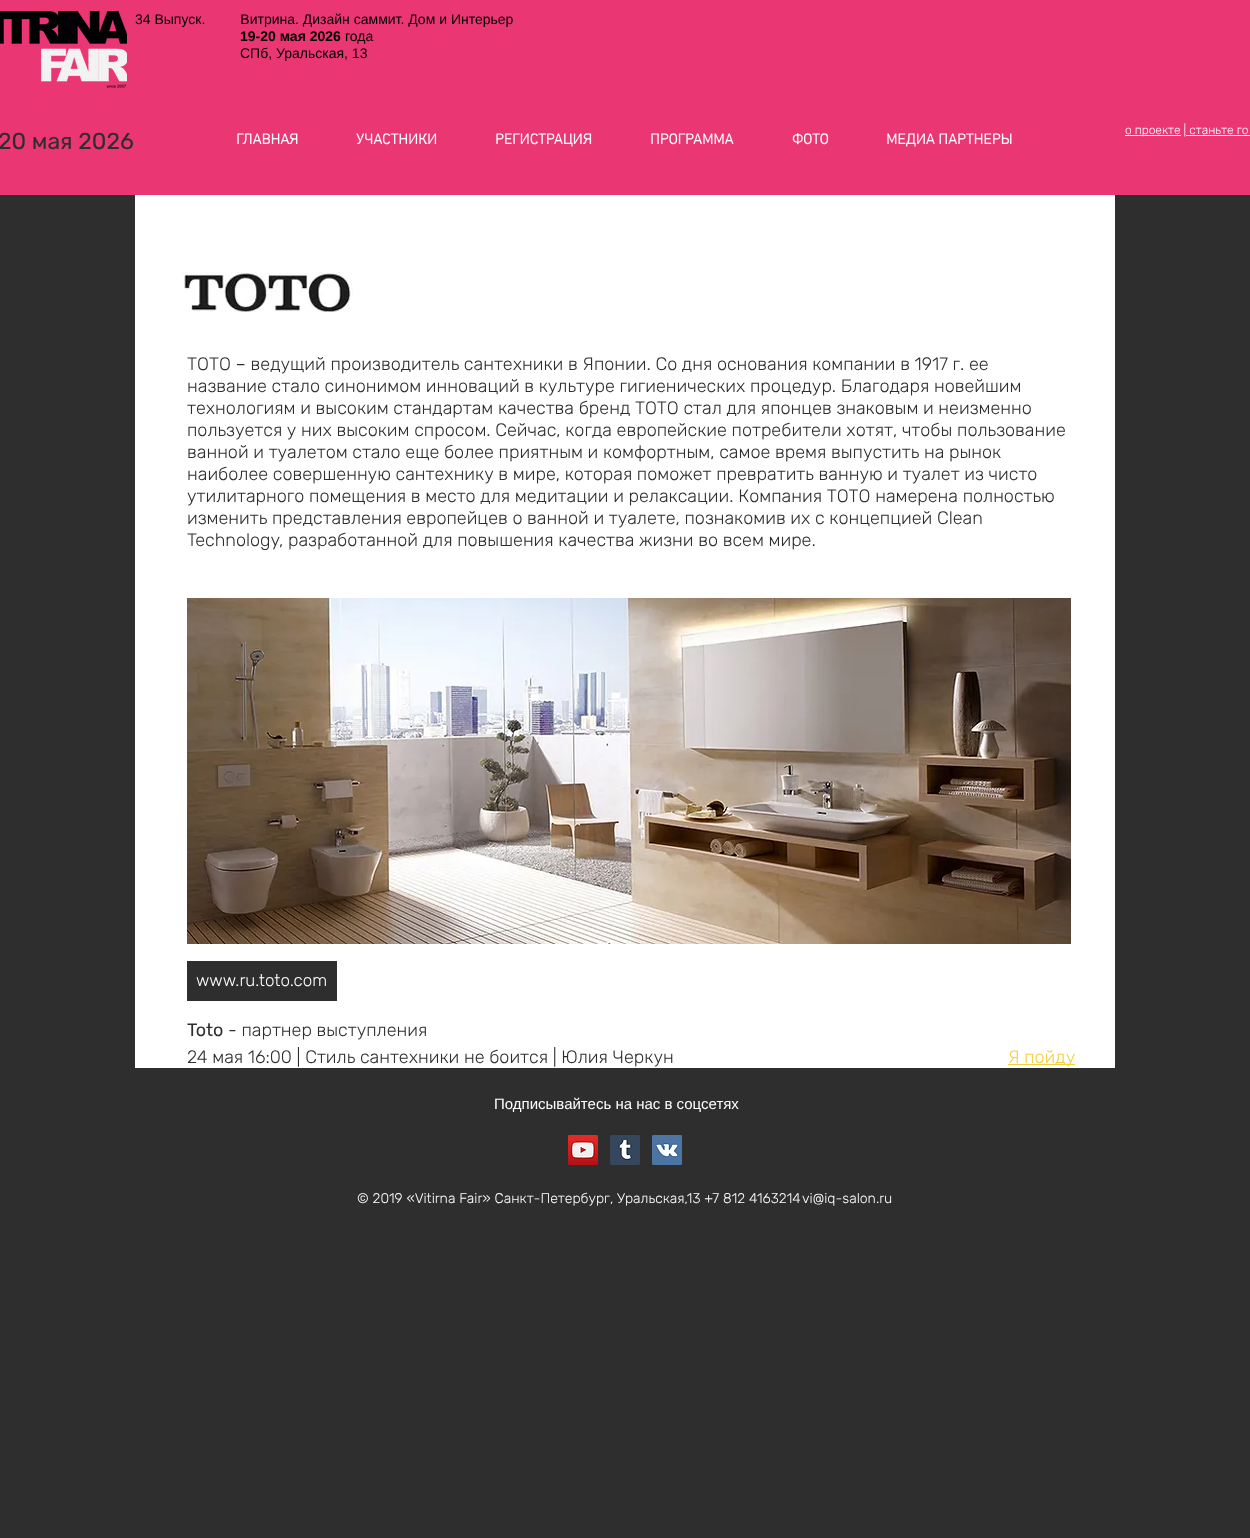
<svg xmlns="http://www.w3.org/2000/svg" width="1250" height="1538">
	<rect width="100%" height="100%" fill="#2F2E2E" />
	<rect x="0" y="0" width="1250" height="195" fill="#EA3673" />
	<image x="0" y="11" width="127" height="77" href="assets/img1.png" />
	<text x="135" y="24" font-family="Liberation Sans" font-size="14" fill="#000000" xml:space="preserve">34 Выпуск.         Витрина. Дизайн саммит. Дом и Интерьер</text>
	<text x="240" y="41" font-family="Liberation Sans" font-size="14" font-weight="700" fill="#000000">19-20 мая 2026</text>
	<g font-family="Liberation Sans" font-size="14" fill="#000000">
		<text x="345" y="41">года</text>
		<text x="240" y="58">СПб, Уральская, 13</text>
	</g>
	<rect x="1125" y="135" width="56" height="1" fill="#FFFFFF" />
	<text x="1125" y="134" font-family="Rubik" font-size="12" font-weight="300" fill="#FFFFFF">о проекте | станьте го</text>
	<rect x="1186" y="135" width="64" height="1" fill="#FFFFFF" />
	<text x="-2" y="149" font-family="Rubik" font-size="23" fill="#2F2E2E">20 мая 2026</text>
	<g font-family="'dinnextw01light'" font-size="15" font-weight="700" fill="#FFFFFF">
		<text x="236" y="144">ГЛАВНАЯ</text>
		<text x="356" y="144">УЧАСТНИКИ</text>
		<text x="495" y="144">РЕГИСТРАЦИЯ</text>
		<text x="650" y="144">ПРОГРАММА</text>
		<text x="792" y="144">ФОТО</text>
		<text x="886" y="144">МЕДИА ПАРТНЕРЫ</text>
	</g>
	<rect x="135" y="195" width="980" height="873" fill="#FFFFFF" />
	<image x="181" y="272" width="172" height="40" href="assets/img2.png" />
	<g font-family="Rubik" font-size="18" font-weight="300" fill="#2F2E2E">
		<text x="187" y="370">ТОТО – ведущий производитель сантехники в Японии. Со дня основания компании в 1917 г. ее</text>
		<text x="187" y="392">название стало синонимом инноваций в культуре гигиенических процедур. Благодаря новейшим</text>
		<text x="187" y="414">технологиям и высоким стандартам качества бренд ТОТО стал для японцев знаковым и неизменно</text>
		<text x="187" y="436">пользуется у них высоким спросом. Сейчас, когда европейские потребители хотят, чтобы пользование</text>
		<text x="187" y="458">ванной и туалетом стало еще более приятным и комфортным, самое время выпустить на рынок</text>
		<text x="187" y="480">наиболее совершенную сантехнику в мире, которая поможет превратить ванную и туалет из чисто</text>
		<text x="187" y="502">утилитарного помещения в место для медитации и релаксации. Компания ТОТО намерена полностью</text>
		<text x="187" y="524">изменить представления европейцев о ванной и туалете, познакомив их с концепцией Clean</text>
		<text x="187" y="546">Technology, разработанной для повышения качества жизни во всем мире.</text>
	</g>
	<image x="187" y="598" width="884" height="346" href="assets/img3.png" />
	<rect x="187" y="961" width="150" height="40" fill="#2F2E2E" />
	<text x="196" y="986" font-family="Rubik" font-size="17" font-weight="300" fill="#FFFFFF">www.ru.toto.com</text>
	<text x="187" y="1036" font-family="Rubik" font-size="18" fill="#2F2E2E">Toto</text>
	<g font-family="Rubik" font-size="18" font-weight="300" fill="#2F2E2E">
		<text x="228" y="1036">- партнер выступления</text>
		<text x="187" y="1063">24 мая 16:00 | Стиль сантехники не боится | Юлия Черкун</text>
	</g>
	<rect x="1008" y="1064" width="67" height="1" fill="#F2D03F" />
	<text x="1008" y="1063" font-family="Rubik" font-size="18" font-weight="300" fill="#F2D03F">Я пойду</text>
	<text x="494" y="1109" font-family="Liberation Sans" font-size="15" fill="#FFFFFF">Подписывайтесь на нас в соцсетях</text>
	<image x="568" y="1135" width="30" height="30" href="assets/img4.png" />
	<image x="610" y="1135" width="30" height="30" href="assets/img5.png" />
	<image x="652" y="1135" width="30" height="30" href="assets/img6.png" />
	<g font-family="Rubik" font-size="14" font-weight="300" fill="#FFFFFF">
		<text x="357" y="1203" word-spacing="0.25">© 2019 «Vitirna Fair» Санкт-Петербург, Уральская,13 +7 812 4163214</text>
		<text x="802" y="1203">vi@iq-salon.ru</text>
	</g>
</svg>
